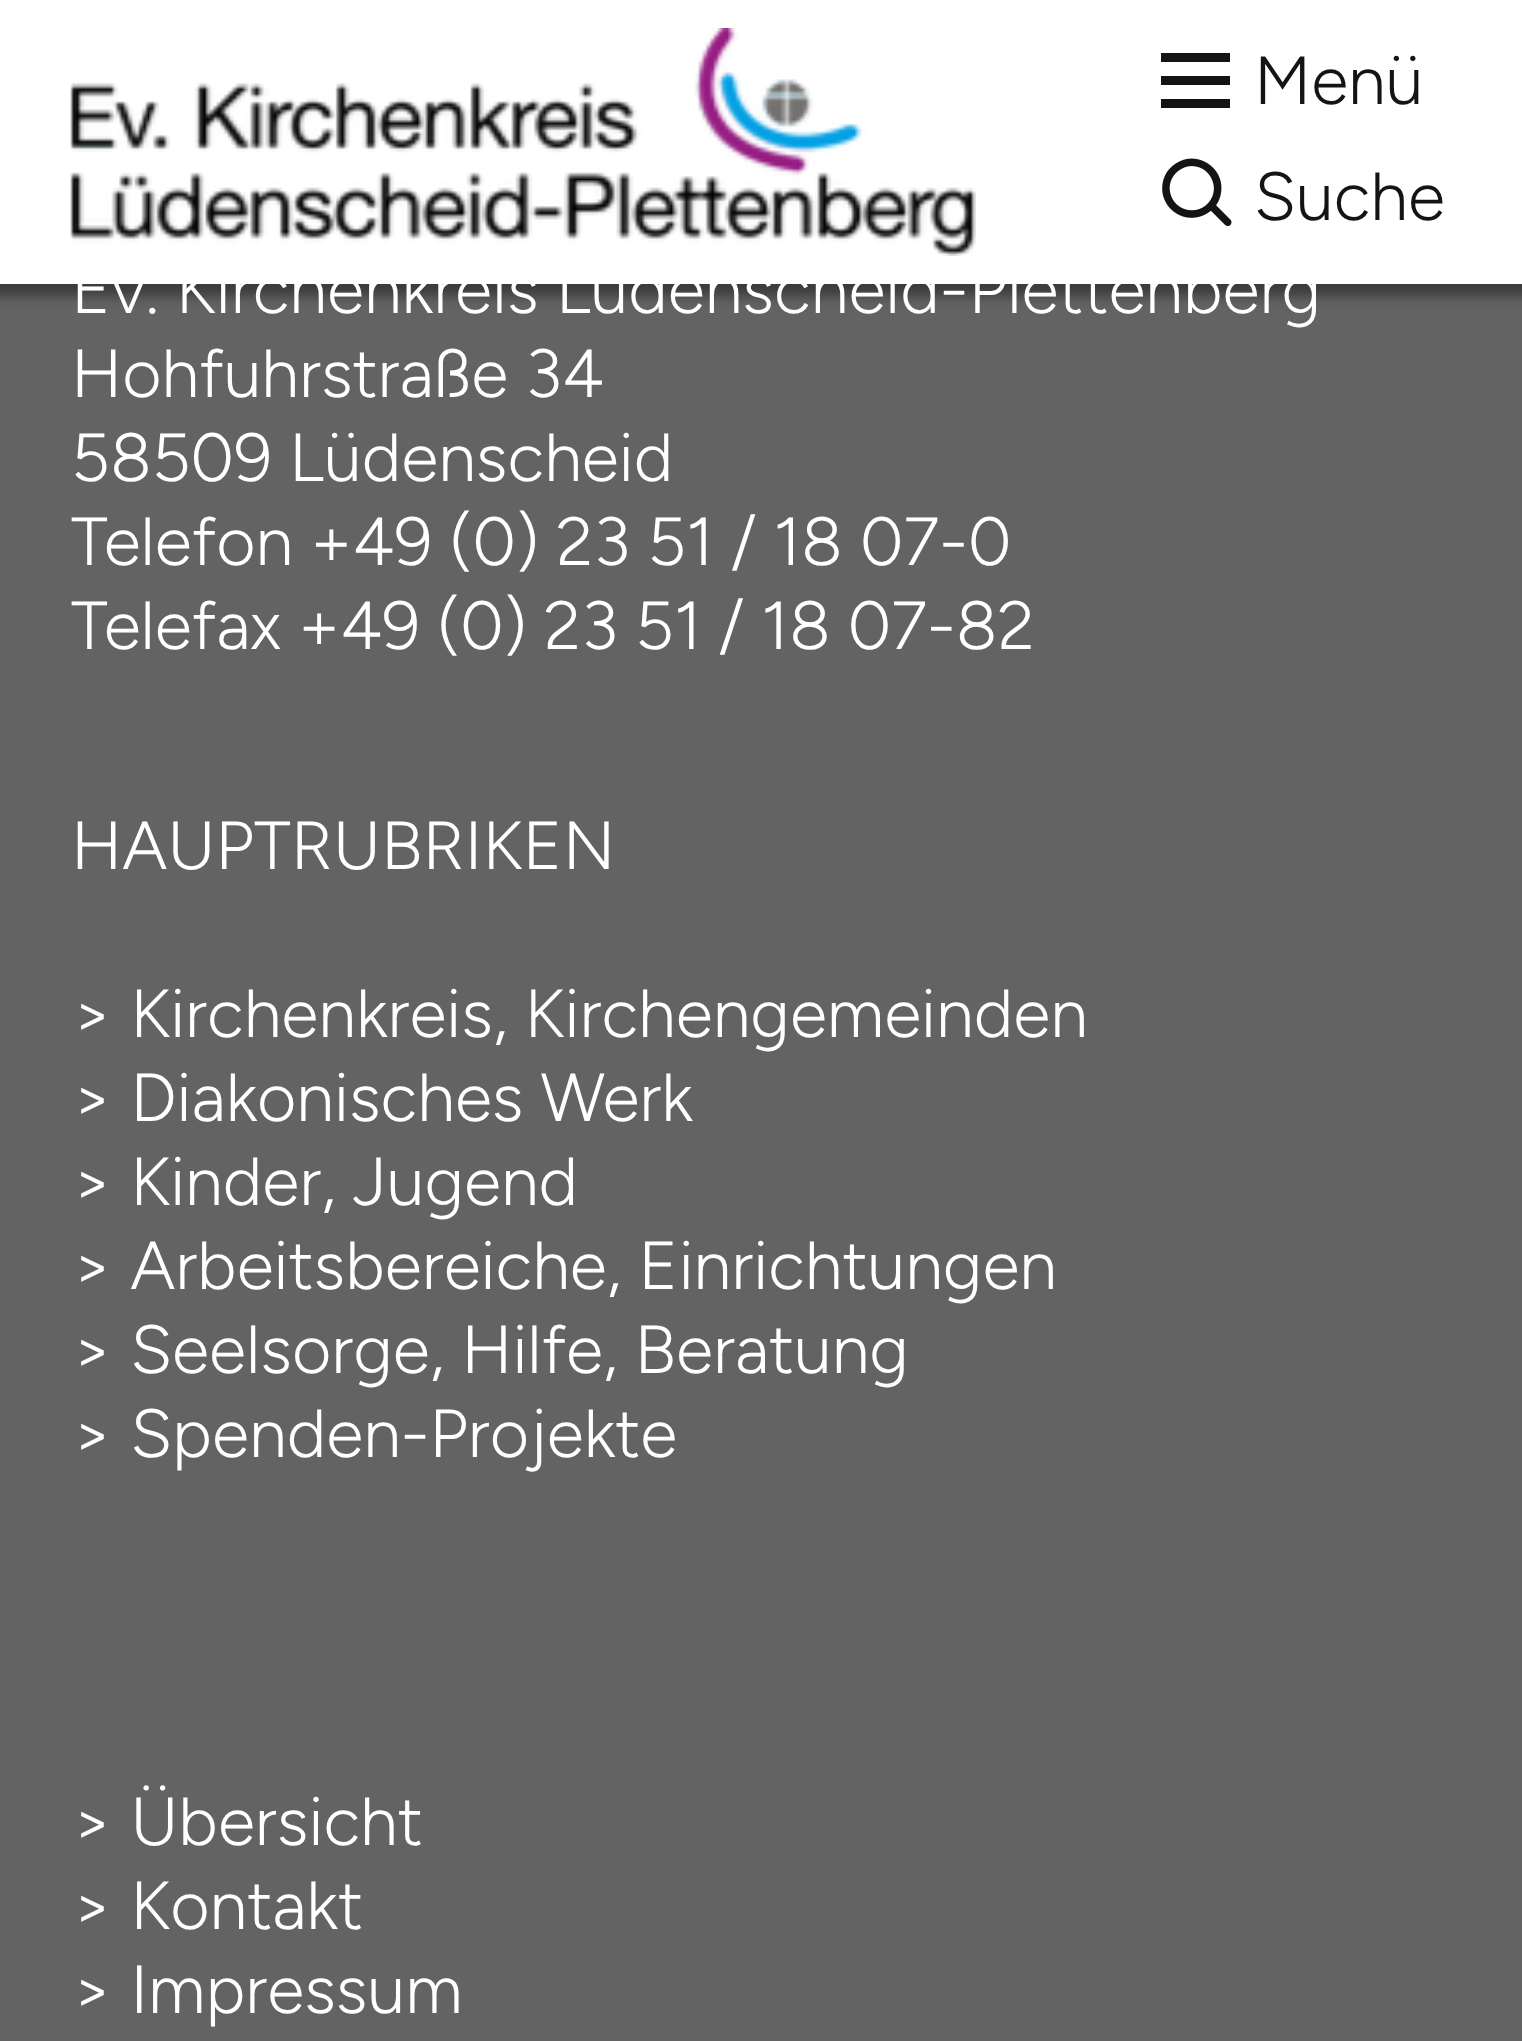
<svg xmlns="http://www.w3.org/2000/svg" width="1522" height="2041">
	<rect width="100%" height="100%" fill="#636363" />
	<rect x="-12" y="-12" width="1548" height="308" fill="#000000" fill-opacity="0.4" filter="blur(6px)" />
	<rect x="0" y="0" width="1522" height="284" fill="#FFFFFF" />
	<image x="70" y="28" width="906" height="228" href="assets/img1.png" />
	<path d="M1230 99V108H1161V99ZM1161 76H1230V85H1161ZM1161 53H1230V62H1161Z" fill="#141414" />
	<text x="1254" y="104" font-family="Figtree" font-size="68" font-weight="300" fill="#141414">Menü</text>
	<image x="1162" y="158" width="70" height="68" href="assets/img2.png" />
	<text x="1254" y="220" font-family="Figtree" font-size="68" font-weight="300" fill="#141414">Suche</text>
	<g font-family="Figtree" font-size="68" font-weight="300" fill="#FFFFFF">
		<text x="71" y="313">Ev. Kirchenkreis Lüdenscheid-Plettenberg</text>
		<text x="71" y="397">Hohfuhrstraße 34</text>
		<text x="71" y="481">58509 Lüdenscheid</text>
		<text x="71" y="565">Telefon +49 (0) 23 51 / 18 07-0</text>
		<text x="71" y="649">Telefax +49 (0) 23 51 / 18 07-82</text>
		<text x="71" y="869">HAUPTRUBRIKEN</text>
		<text x="71" y="1037">&gt; Kirchenkreis, Kirchengemeinden</text>
		<text x="71" y="1121">&gt; Diakonisches Werk</text>
		<text x="71" y="1205">&gt; Kinder, Jugend</text>
		<text x="71" y="1289">&gt; Arbeitsbereiche, Einrichtungen</text>
		<text x="71" y="1373">&gt; Seelsorge, Hilfe, Beratung</text>
		<text x="71" y="1457">&gt; Spenden-Projekte</text>
		<text x="71" y="1845">&gt; Übersicht</text>
		<text x="71" y="1929">&gt; Kontakt</text>
		<text x="71" y="2013">&gt; Impressum</text>
	</g>
</svg>
